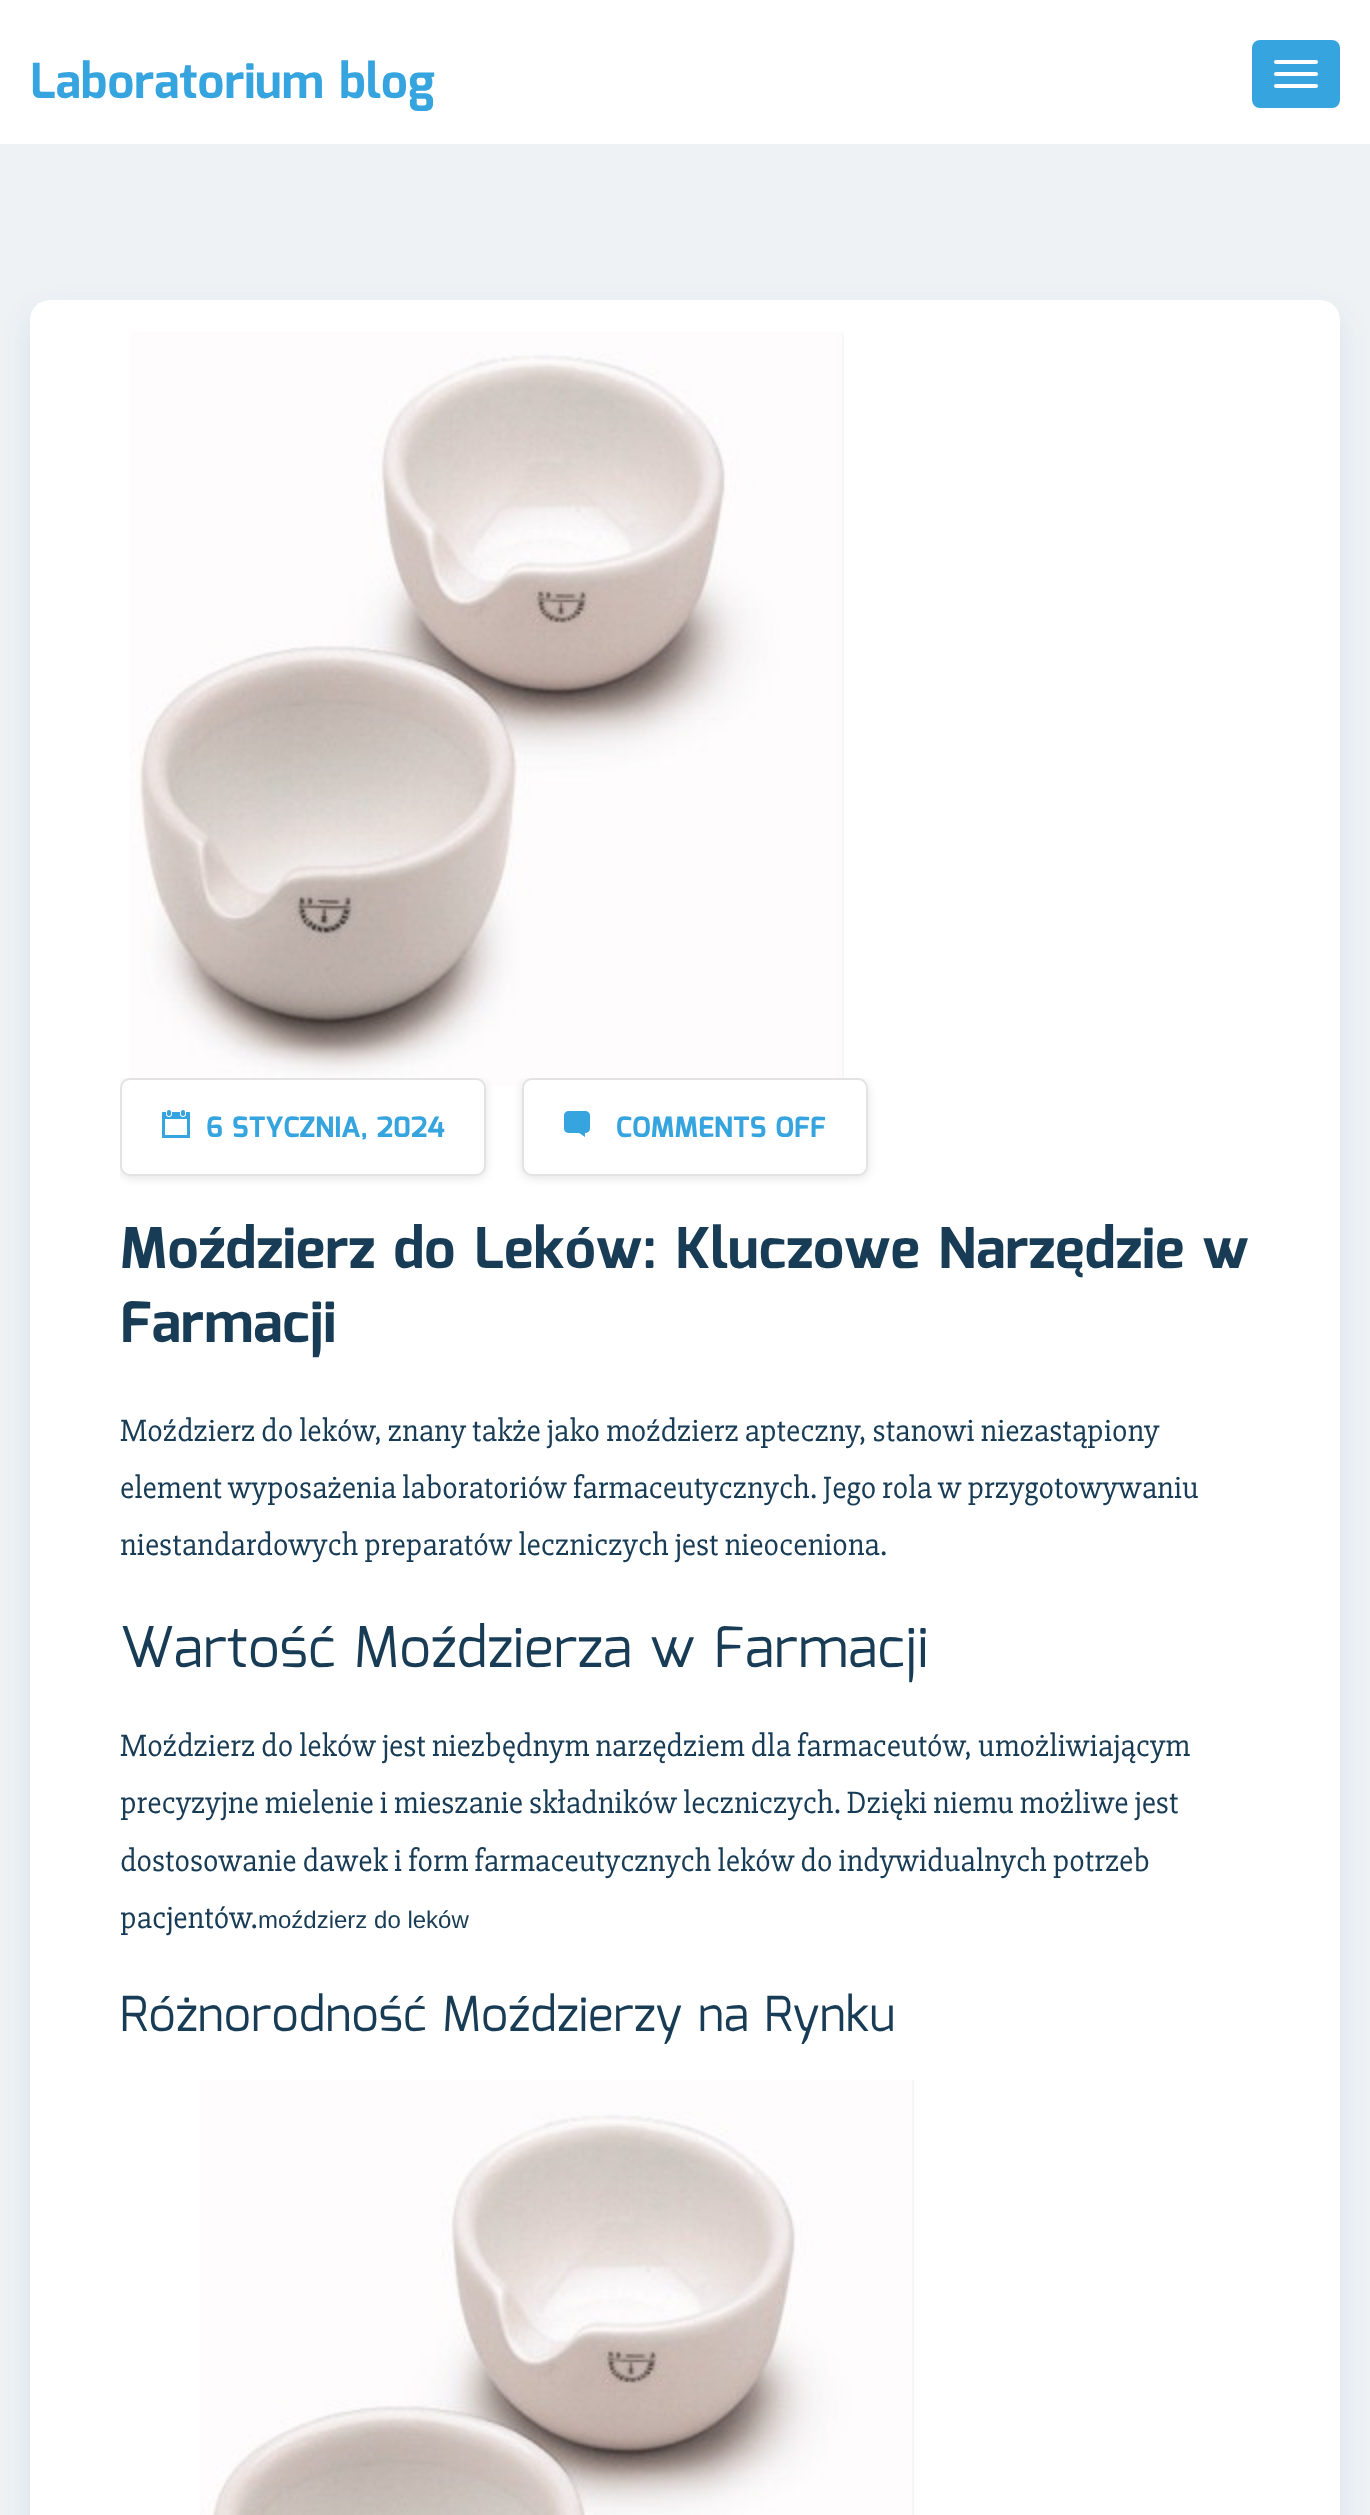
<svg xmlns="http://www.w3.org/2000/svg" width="1370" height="2515">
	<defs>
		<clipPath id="clip1"><rect x="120" y="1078" width="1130" height="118" /></clipPath>
	</defs>
	<rect width="100%" height="100%" fill="#EEF2F5" />
	<rect x="0" y="0" width="1370" height="144" fill="#FFFFFF" />
	<text x="30" y="98" font-family="Mina" font-size="48" font-weight="700" fill="#36A4DE">Laboratorium blog</text>
	<rect x="1252" y="40" width="88" height="68" rx="8" fill="#36A4DE" />
	<rect x="1274" y="60" width="44" height="4" rx="2" fill="#FFFFFF" />
	<rect x="1274" y="72" width="44" height="4" rx="2" fill="#FFFFFF" />
	<rect x="1274" y="84" width="44" height="4" rx="2" fill="#FFFFFF" />
	<rect x="30" y="314" width="1310" height="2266" rx="20" fill="#003881" fill-opacity="0.09" filter="blur(15px)" />
	<rect x="30" y="300" width="1310" height="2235" rx="20" fill="#FFFFFF" />
	<image x="130" y="332" width="714" height="754" href="assets/img1.png" />
	<g clip-path="url(#clip1)">
		<rect x="120" y="1080" width="366" height="98" rx="10" fill="#000000" fill-opacity="0.11" filter="blur(5px)" />
	</g>
	<rect x="120" y="1078" width="366" height="98" rx="10" fill="#FFFFFF" />
	<rect x="121" y="1079" width="364" height="96" rx="9" fill="none" stroke="#000000" stroke-opacity="0.11" stroke-width="2" />
	<image x="162" y="1110" width="28" height="28" href="assets/img2.png" />
	<text x="206" y="1137" font-family="Mina" font-size="28" font-weight="700" fill="#36A4DE">6 STYCZNIA, 2024</text>
	<g clip-path="url(#clip1)">
		<rect x="522" y="1080" width="346" height="98" rx="10" fill="#000000" fill-opacity="0.11" filter="blur(5px)" />
	</g>
	<rect x="522" y="1078" width="346" height="98" rx="10" fill="#FFFFFF" />
	<rect x="523" y="1079" width="344" height="96" rx="9" fill="none" stroke="#000000" stroke-opacity="0.11" stroke-width="2" />
	<image x="564" y="1111" width="26" height="26" href="assets/img3.png" />
	<text x="616" y="1137" font-family="Mina" font-size="28" font-weight="700" fill="#36A4DE">COMMENTS OFF</text>
	<g font-family="Mina" font-size="56" font-weight="700" fill="#183C55">
		<text x="120" y="1268">Moździerz do Leków: Kluczowe Narzędzie w</text>
		<text x="120" y="1342">Farmacji</text>
	</g>
	<g font-family="'Slabo 27px'" font-size="32" fill="#183C55">
		<text x="120" y="1441">Moździerz do leków, znany także jako moździerz apteczny, stanowi niezastąpiony</text>
		<text x="120" y="1498">element wyposażenia laboratoriów farmaceutycznych. Jego rola w przygotowywaniu</text>
		<text x="120" y="1555">niestandardowych preparatów leczniczych jest nieoceniona.</text>
	</g>
	<text x="120" y="1667" font-family="Mina" font-size="56" fill="#183C55">Wartość Moździerza w Farmacji</text>
	<g font-family="'Slabo 27px'" font-size="32" fill="#183C55">
		<text x="120" y="1756">Moździerz do leków jest niezbędnym narzędziem dla farmaceutów, umożliwiającym</text>
		<text x="120" y="1813">precyzyjne mielenie i mieszanie składników leczniczych. Dzięki niemu możliwe jest</text>
		<text x="120" y="1871">dostosowanie dawek i form farmaceutycznych leków do indywidualnych potrzeb</text>
		<text x="120" y="1928">pacjentów.</text>
	</g>
	<text x="258" y="1928" font-family="Liberation Sans" font-size="24" fill="#183C55">moździerz do leków</text>
	<text x="120" y="2031" font-family="Mina" font-size="48" fill="#183C55">Różnorodność Moździerzy na Rynku</text>
	<image x="200" y="2080" width="714" height="435" href="assets/img4.png" />
</svg>
